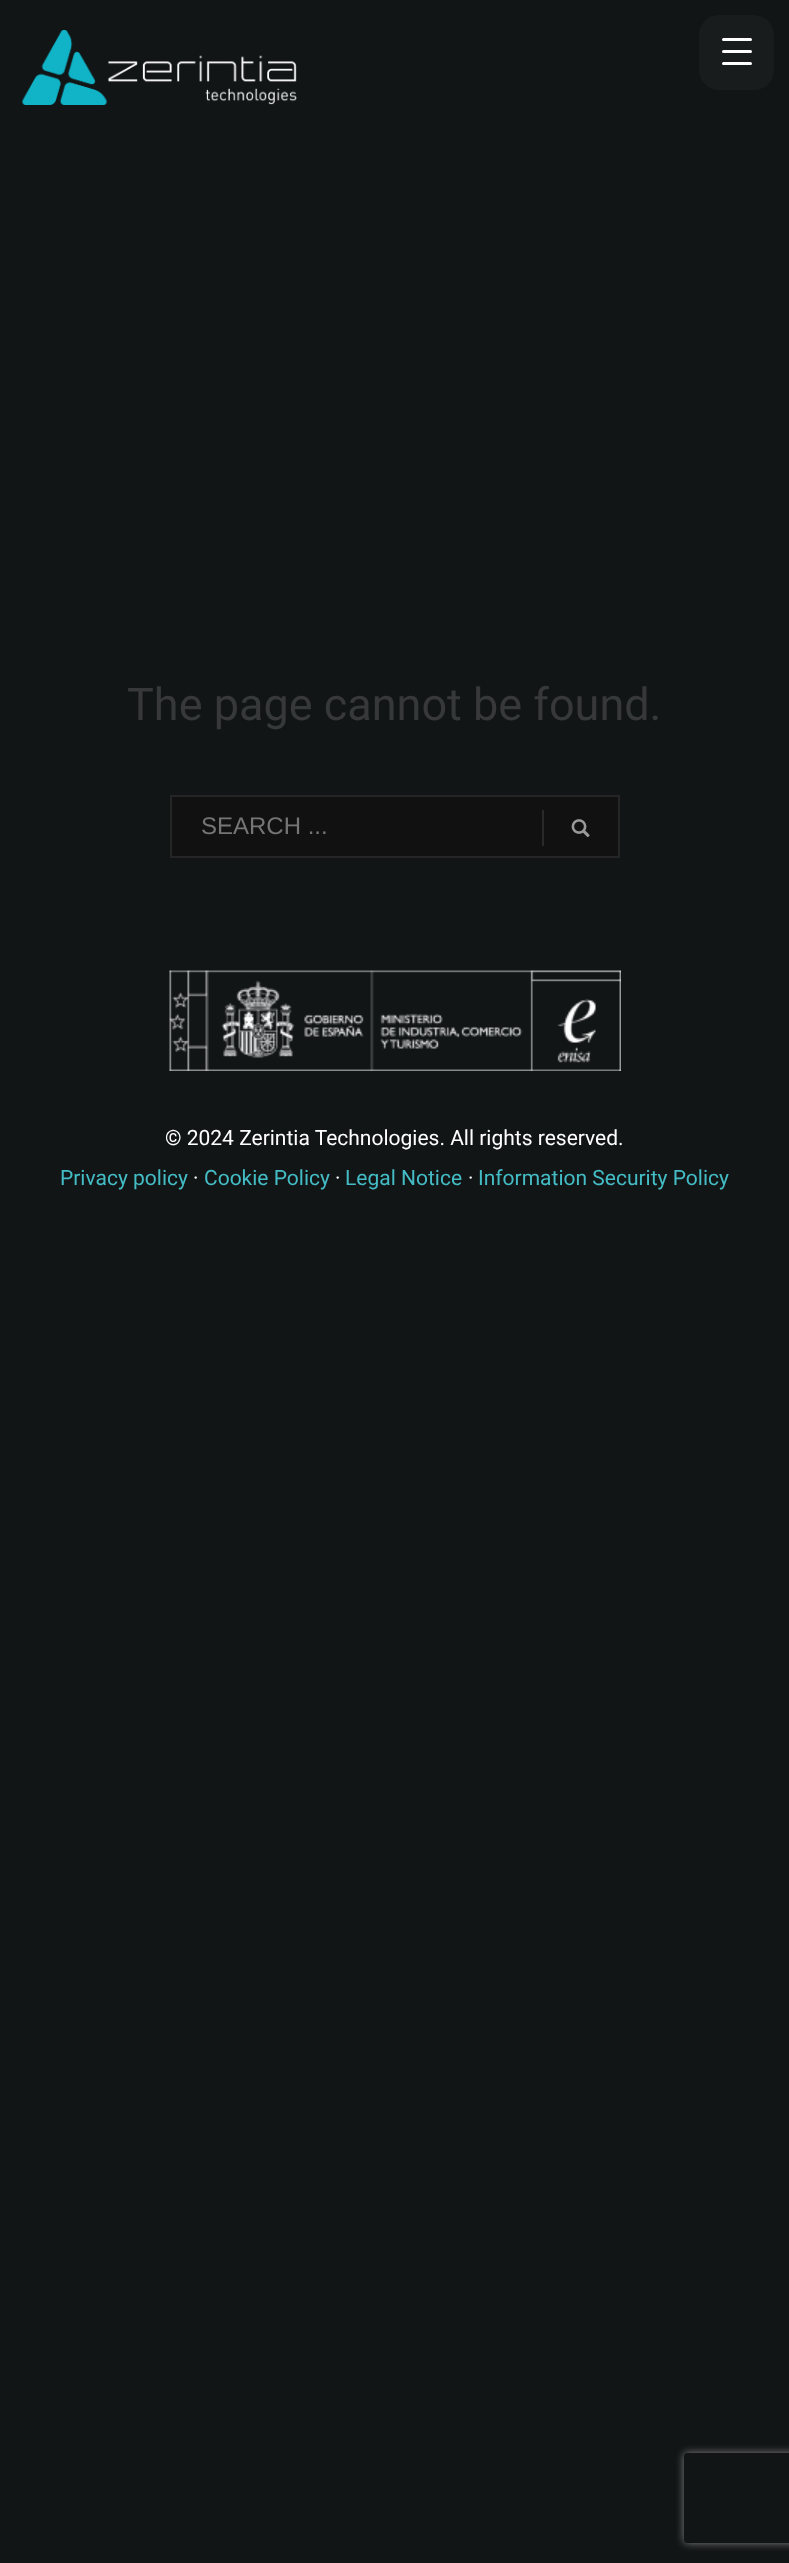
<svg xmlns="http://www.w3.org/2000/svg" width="789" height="2563">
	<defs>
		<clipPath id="clip1"><path d="M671 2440H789V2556H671ZM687 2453H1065C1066.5 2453 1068 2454.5 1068 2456V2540C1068 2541.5 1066.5 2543 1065 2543H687C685.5 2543 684 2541.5 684 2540V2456C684 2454.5 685.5 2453 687 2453Z" clip-rule="evenodd" /></clipPath>
	</defs>
	<rect width="100%" height="100%" fill="#121516" />
	<rect x="699" y="15" width="75" height="75" rx="20" fill="#191C1D" />
	<rect x="722" y="50" width="30" height="3" rx="1.5" fill="#FFFFFF" />
	<rect x="722" y="38" width="30" height="3" rx="1.5" fill="#FFFFFF" />
	<rect x="722" y="62" width="30" height="3" rx="1.5" fill="#FFFFFF" />
	<image x="22" y="30" width="275" height="75" href="assets/img1.png" />
	<text x="127" y="720" font-family="Roboto" font-size="45" fill="#363839">The page cannot be found.</text>
	<rect x="171" y="796" width="448" height="61" fill="#111111" stroke="#252525" stroke-width="2" />
	<text x="201" y="834" font-family="Liberation Sans" font-size="24" fill="#757575">SEARCH ...</text>
	<rect x="542" y="810" width="2" height="36" fill="#292929" />
	<image x="571" y="819" width="19" height="19" href="assets/img2.png" />
	<image x="169" y="970" width="452" height="101" href="assets/img3.png" />
	<text x="165" y="1145" font-family="Roboto" font-size="21" fill="#FFFFFF">© 2024 Zerintia Technologies. All rights reserved.</text>
	<text x="60" y="1185" font-family="Roboto" font-size="21" fill="#44BCC5">Privacy policy</text>
	<text x="193" y="1185" font-family="Roboto" font-size="21" fill="#FFFFFF">·</text>
	<text x="204" y="1185" font-family="Roboto" font-size="21" fill="#44BCC5">Cookie Policy</text>
	<text x="335" y="1185" font-family="Roboto" font-size="21" fill="#FFFFFF">·</text>
	<text x="345" y="1185" font-family="Roboto" font-size="21" fill="#44BCC5">Legal Notice</text>
	<text x="468" y="1185" font-family="Roboto" font-size="21" fill="#FFFFFF">·</text>
	<text x="478" y="1185" font-family="Roboto" font-size="21" fill="#44BCC5">Information Security Policy</text>
	<g clip-path="url(#clip1)">
		<rect x="684" y="2453" width="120" height="90" rx="3" fill="#808080" filter="blur(4px)" />
	</g>
</svg>
